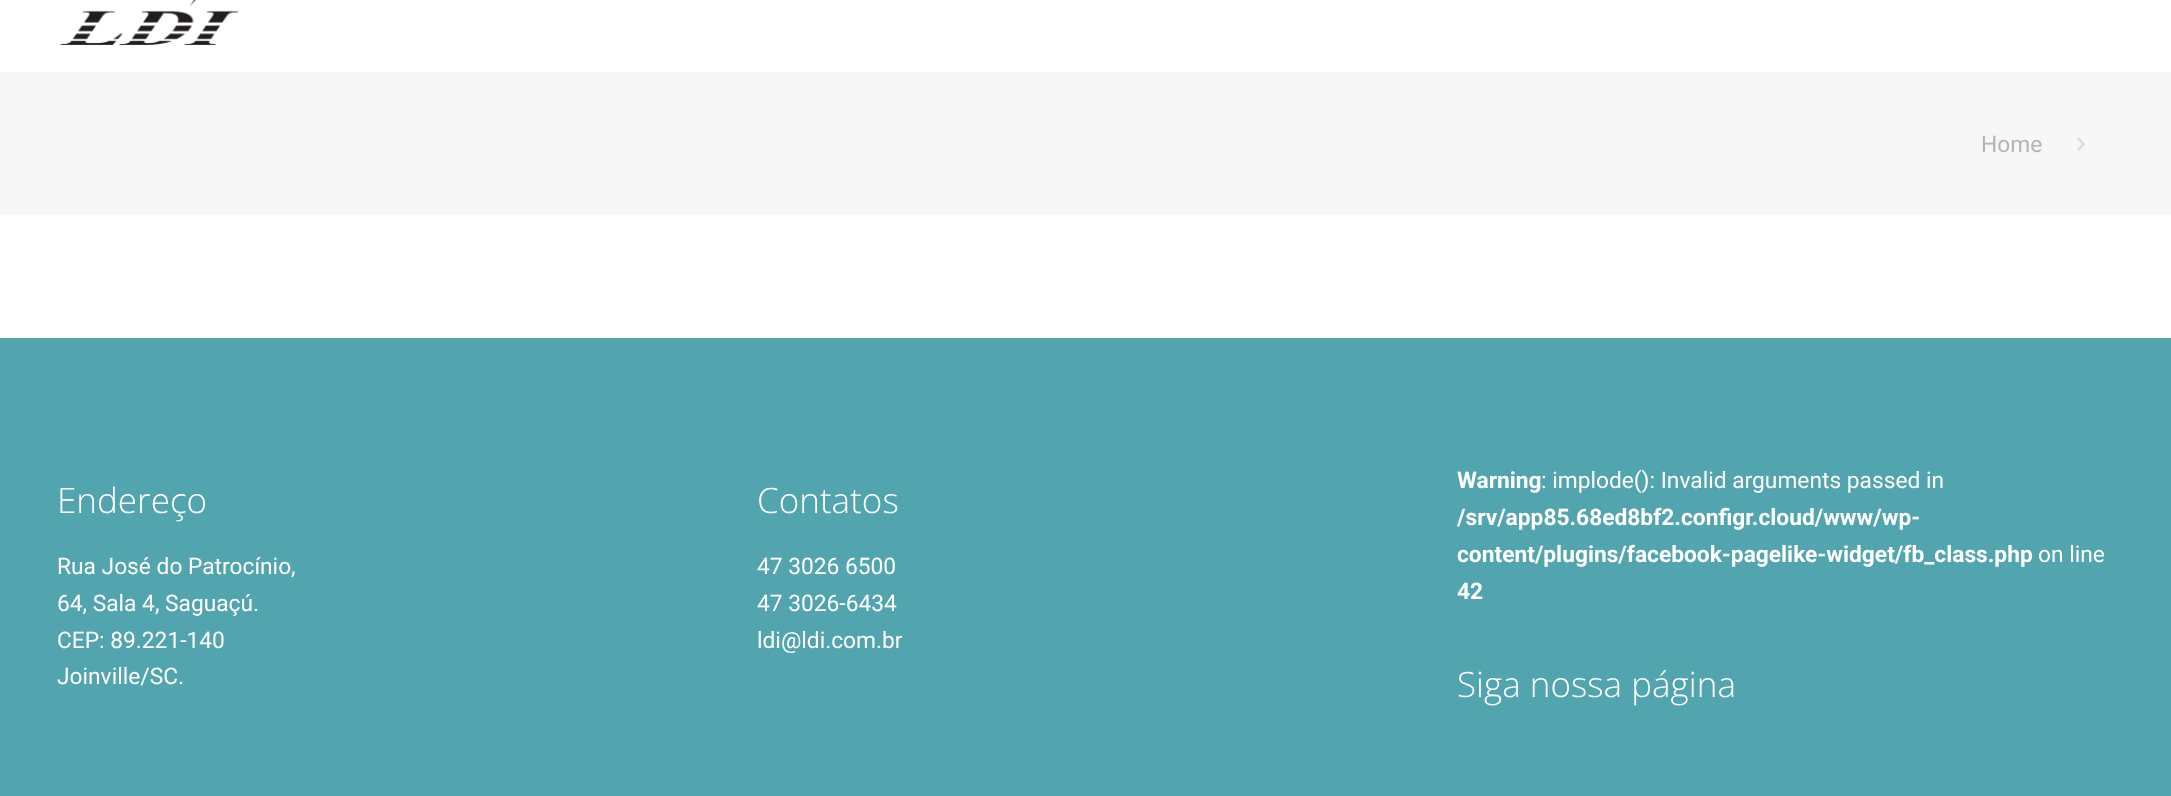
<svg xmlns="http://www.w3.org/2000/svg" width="2171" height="796">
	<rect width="100%" height="100%" fill="#FFFFFF" />
	<image x="60" y="0" width="178" height="45" href="assets/img1.png" />
	<rect x="0" y="72" width="2171" height="143" fill="#F7F7F7" />
	<text x="1981" y="152" font-family="Roboto" font-size="22.75" fill="#B4B4B4">Home</text>
	<image x="2077" y="137" width="8" height="14" href="assets/img2.png" />
	<rect x="0" y="338" width="2171" height="458" fill="#52A5AE" />
	<text x="57" y="513" font-family="Open Sans" font-size="35" font-weight="300" fill="#FFFFFF">Endereço</text>
	<g font-family="Roboto" font-size="22.75" fill="#FFFFFF">
		<text x="57" y="574">Rua José do Patrocínio,</text>
		<text x="57" y="611">64, Sala 4, Saguaçú.</text>
		<text x="57" y="648">CEP: 89.221-140</text>
		<text x="57" y="684">Joinville/SC.</text>
	</g>
	<text x="757" y="513" font-family="Open Sans" font-size="35" font-weight="300" fill="#FFFFFF">Contatos</text>
	<g font-family="Roboto" font-size="22.75" fill="#FFFFFF">
		<text x="757" y="574">47 3026 6500</text>
		<text x="757" y="611">47 3026-6434</text>
		<text x="757" y="648">ldi@ldi.com.br</text>
	</g>
	<text x="1457" y="488" font-family="Roboto" font-size="22.75" font-weight="700" fill="#FFFFFF">Warning</text>
	<text x="1541" y="488" font-family="Roboto" font-size="22.75" fill="#FFFFFF">: implode(): Invalid arguments passed in</text>
	<g font-family="Roboto" font-size="22.75" font-weight="700" fill="#FFFFFF">
		<text x="1457" y="525">/srv/app85.68ed8bf2.configr.cloud/www/wp-</text>
		<text x="1457" y="562">content/plugins/facebook-pagelike-widget/fb_class.php</text>
	</g>
	<text x="2038" y="562" font-family="Roboto" font-size="22.75" fill="#FFFFFF">on line</text>
	<text x="1457" y="599" font-family="Roboto" font-size="22.75" font-weight="700" fill="#FFFFFF">42</text>
	<text x="1457" y="697" font-family="Open Sans" font-size="35" font-weight="300" fill="#FFFFFF">Siga nossa página</text>
</svg>
